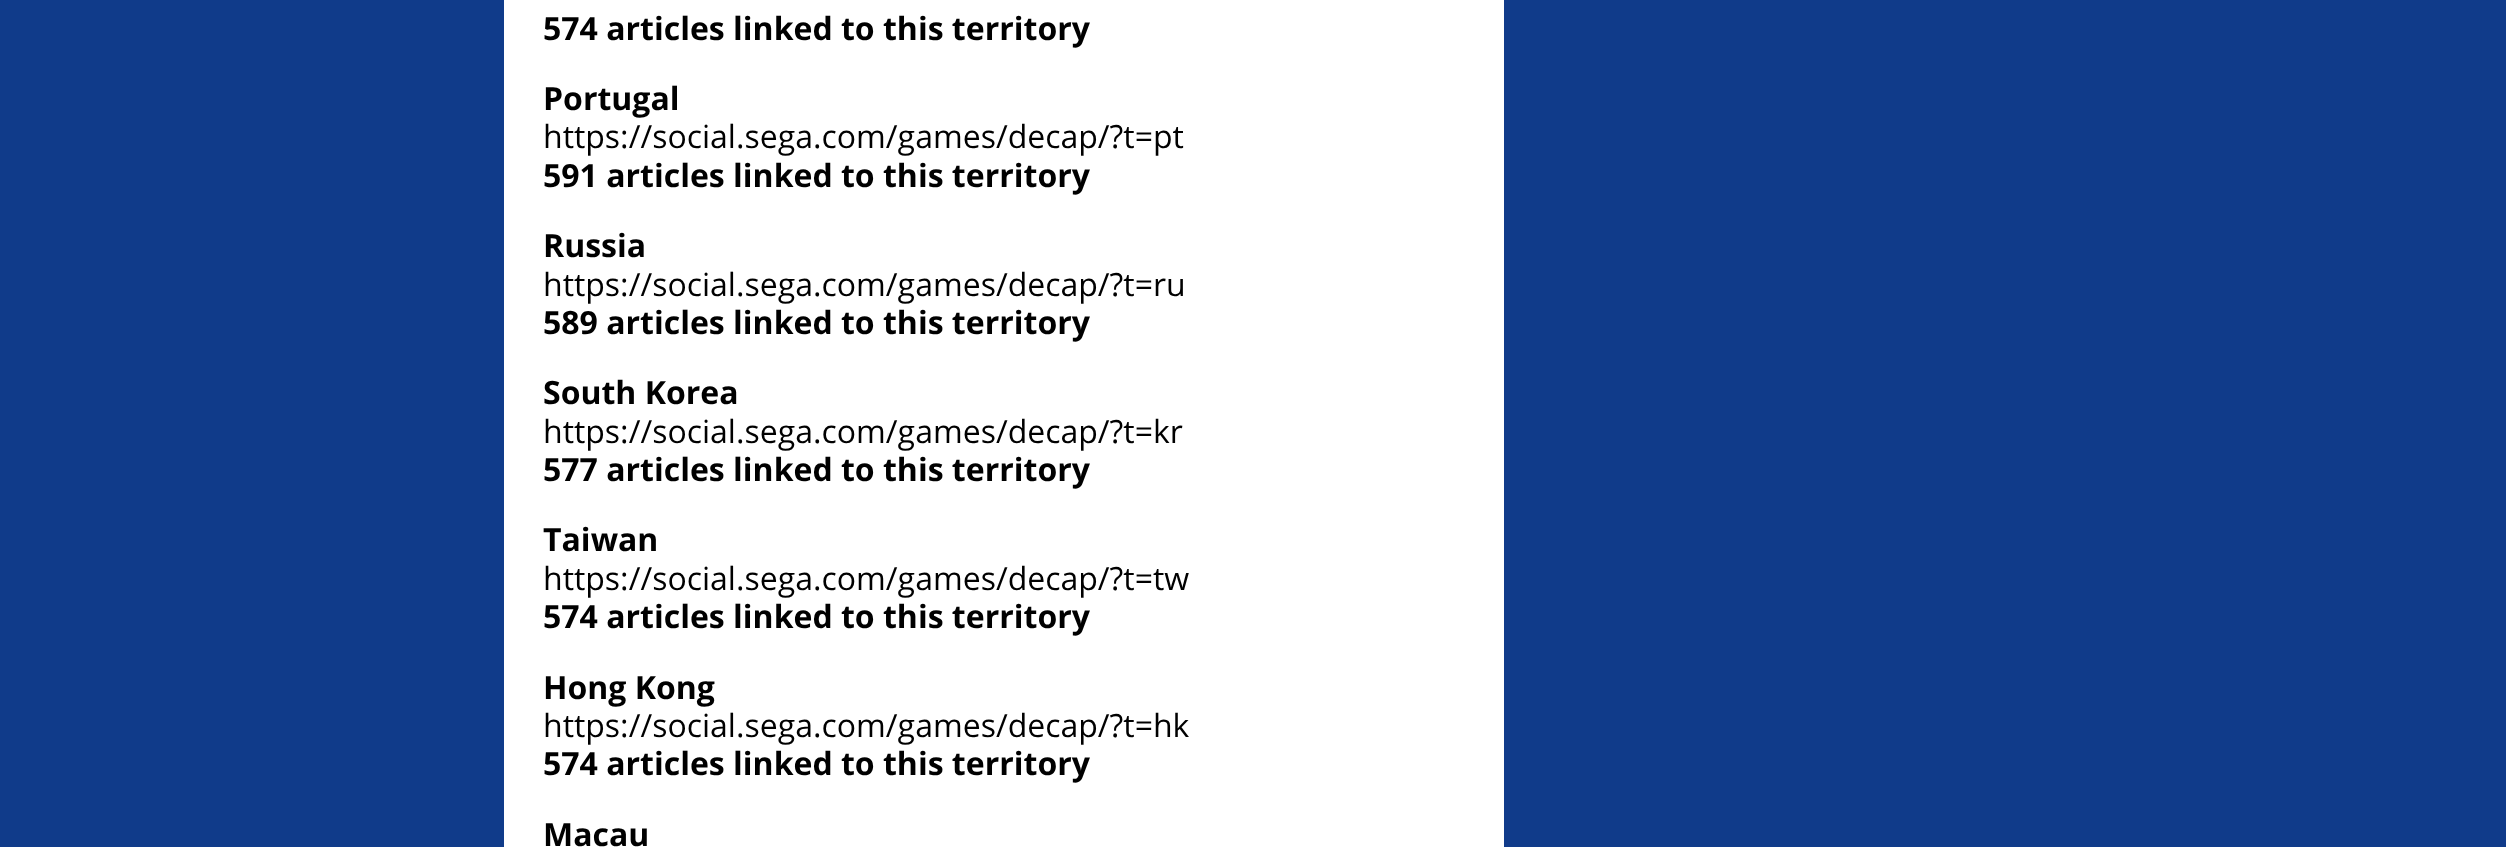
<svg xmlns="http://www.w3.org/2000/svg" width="2506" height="847">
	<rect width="100%" height="100%" fill="#103B8A" />
	<rect x="504" y="0" width="1000" height="847" fill="#FFFFFF" />
	<g font-family="Open Sans" font-size="32" font-weight="700" fill="#000000">
		<text x="543" y="40">574 articles linked to this territory</text>
		<text x="543" y="110">Portugal</text>
	</g>
	<text x="543" y="148" font-family="Open Sans" font-size="32" fill="#000000">https://social.sega.com/games/decap/?t=pt</text>
	<g font-family="Open Sans" font-size="32" font-weight="700" fill="#000000">
		<text x="543" y="187">591 articles linked to this territory</text>
		<text x="543" y="257">Russia</text>
	</g>
	<text x="543" y="296" font-family="Open Sans" font-size="32" fill="#000000">https://social.sega.com/games/decap/?t=ru</text>
	<g font-family="Open Sans" font-size="32" font-weight="700" fill="#000000">
		<text x="543" y="334">589 articles linked to this territory</text>
		<text x="543" y="404">South Korea</text>
	</g>
	<text x="543" y="443" font-family="Open Sans" font-size="32" fill="#000000">https://social.sega.com/games/decap/?t=kr</text>
	<g font-family="Open Sans" font-size="32" font-weight="700" fill="#000000">
		<text x="543" y="481">577 articles linked to this territory</text>
		<text x="543" y="551">Taiwan</text>
	</g>
	<text x="543" y="590" font-family="Open Sans" font-size="32" fill="#000000">https://social.sega.com/games/decap/?t=tw</text>
	<g font-family="Open Sans" font-size="32" font-weight="700" fill="#000000">
		<text x="543" y="628">574 articles linked to this territory</text>
		<text x="543" y="699">Hong Kong</text>
	</g>
	<text x="543" y="737" font-family="Open Sans" font-size="32" fill="#000000">https://social.sega.com/games/decap/?t=hk</text>
	<g font-family="Open Sans" font-size="32" font-weight="700" fill="#000000">
		<text x="543" y="775">574 articles linked to this territory</text>
		<text x="543" y="846">Macau</text>
	</g>
</svg>
